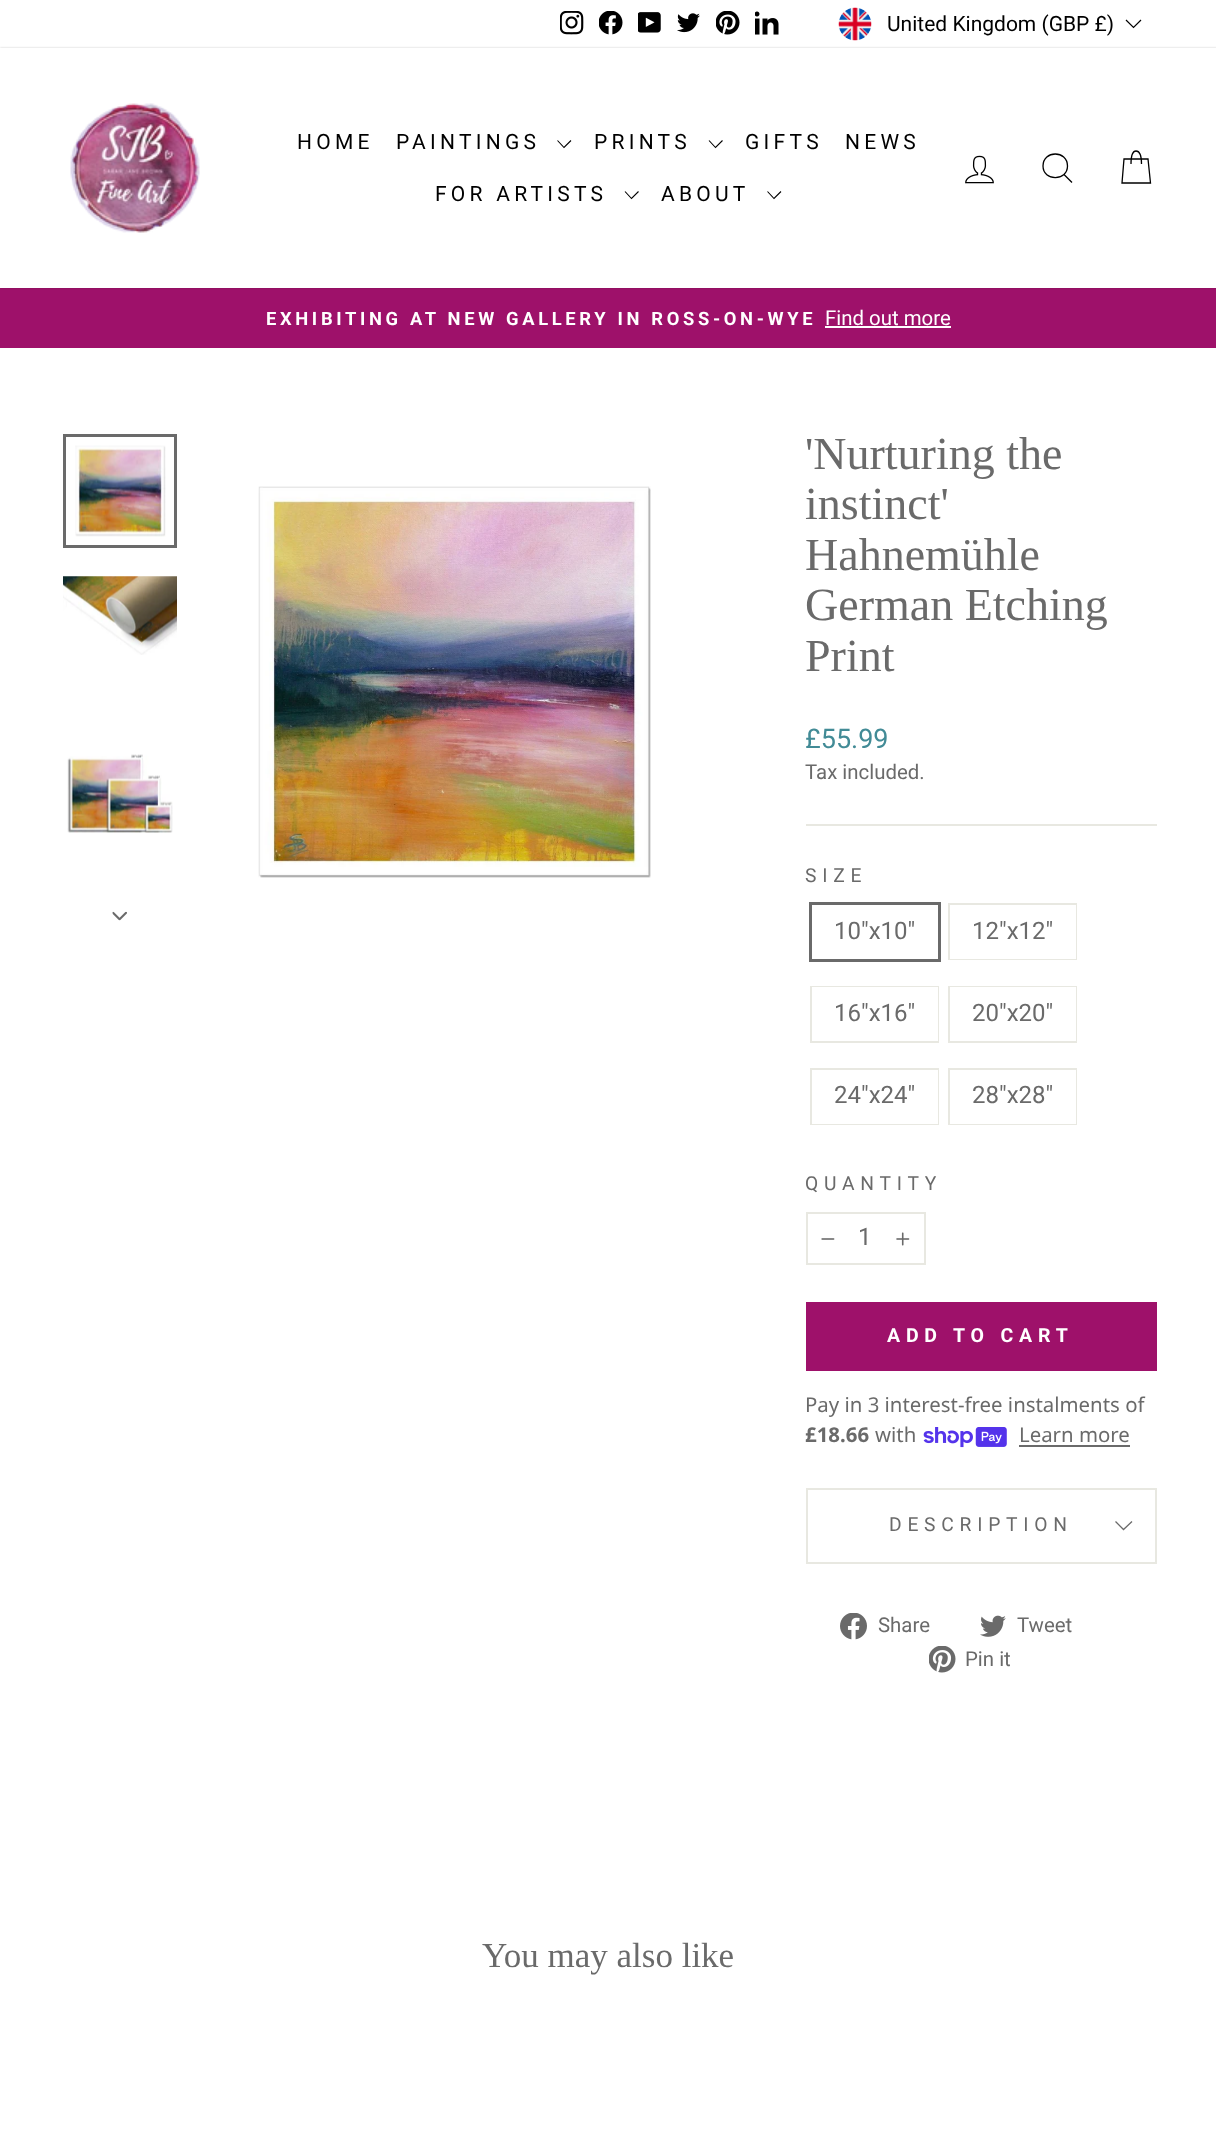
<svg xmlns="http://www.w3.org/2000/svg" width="1216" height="2149">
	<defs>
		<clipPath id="clip1"><path d="M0 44H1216V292H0ZM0 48H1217V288H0Z" clip-rule="evenodd" /></clipPath>
	</defs>
	<rect width="100%" height="100%" fill="#FFFFFF" />
	<image x="560" y="11" width="24" height="24" href="assets/img1.png" />
	<image x="599" y="11" width="24" height="24" href="assets/img2.png" />
	<image x="638" y="12" width="23" height="21" href="assets/img3.png" />
	<image x="677" y="13" width="23" height="20" href="assets/img4.png" />
	<image x="716" y="11" width="24" height="24" href="assets/img5.png" />
	<image x="755" y="11" width="24" height="24" href="assets/img6.png" />
	<image x="838" y="7" width="34" height="34" href="assets/img7.png" />
	<text x="887" y="31" font-family="Roboto" font-size="21" fill="#000000">United Kingdom (GBP £)</text>
	<path d="M1126 20L1133.5 27.5L1141 20" fill="none" stroke="#000000" stroke-width="1.2" />
	<rect x="0" y="288" width="1216" height="60" fill="#9E116A" />
	<g clip-path="url(#clip1)">
		<rect x="0" y="48" width="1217" height="240" fill="#000000" fill-opacity="0.2" filter="blur(1px)" />
	</g>
	<image x="70" y="103" width="130" height="130" href="assets/img8.png" />
	<g font-family="Roboto" font-size="21" letter-spacing="4.25" fill="#000000">
		<text x="297" y="149">HOME</text>
		<text x="396" y="149">PAINTINGS</text>
	</g>
	<path d="M557.5 140.5L564 147.5L571 140.5" fill="none" stroke="#000000" stroke-width="1.1" />
	<text x="594" y="149" font-family="Roboto" font-size="21" letter-spacing="4.25" fill="#000000">PRINTS</text>
	<path d="M709 140.5L715.5 147.5L722.5 140.5" fill="none" stroke="#000000" stroke-width="1.1" />
	<g font-family="Roboto" font-size="21" letter-spacing="4.25" fill="#000000">
		<text x="745" y="149">GIFTS</text>
		<text x="845" y="149">NEWS</text>
		<text x="435" y="201">FOR ARTISTS</text>
	</g>
	<path d="M625 191.5L631.5 198.5L638.5 191.5" fill="none" stroke="#000000" stroke-width="1.1" />
	<text x="661" y="201" font-family="Roboto" font-size="21" letter-spacing="4.25" fill="#000000">ABOUT</text>
	<path d="M767.5 191.5L774 198.5L781 191.5" fill="none" stroke="#000000" stroke-width="1.1" />
	<image x="965" y="155" width="29" height="29" href="assets/img9.png" />
	<path d="M1067.5 166C1067.5 181.5 1043 181.5 1043 166C1043 150 1067.5 150 1067.5 166ZM1072 182.5L1064 174.5" fill="none" stroke="#000000" stroke-width="1.3" />
	<path d="M1131 164C1131 153.5 1133 151 1136 151C1139 151 1141.5 153.5 1141.5 164M1124 159H1148L1150.5 183H1122Z" fill="none" stroke="#000000" stroke-width="1.3" />
	<text x="266" y="325" font-family="Roboto" font-size="18.35" font-weight="700" letter-spacing="3.65" fill="#FFFFFF">EXHIBITING AT NEW GALLERY IN ROSS-ON-WYE</text>
	<text x="825" y="325" font-family="Roboto" font-size="20.4" fill="#FFFFFF">Find out more</text>
	<rect x="825" y="326" width="126" height="2" fill="#FFFFFF" />
	<image x="75" y="445" width="91" height="92" href="assets/img10.png" />
	<rect x="64.5" y="435.5" width="111" height="111" fill="none" stroke="#6A6A6A" stroke-width="3" />
	<image x="63" y="576" width="114" height="79" href="assets/img11.png" />
	<image x="67" y="754" width="106" height="79" href="assets/img12.png" />
	<image x="112" y="911" width="15" height="10" href="assets/img13.png" />
	<image x="258" y="486" width="393" height="392" href="assets/img14.png" />
	<g font-family="Liberation Serif" font-size="46" fill="#6A6A6A">
		<text x="805" y="469">'Nurturing the</text>
		<text x="805" y="519">instinct'</text>
		<text x="805" y="570">Hahnemühle</text>
		<text x="805" y="620">German Etching</text>
		<text x="805" y="671">Print</text>
	</g>
	<text x="805" y="748" font-family="Roboto" font-size="27" fill="#428B96">£55.99</text>
	<text x="805" y="779" font-family="Roboto" font-size="20.4" fill="#6A6A6A">Tax included.</text>
	<rect x="806" y="824" width="351" height="2" fill="#E8E8E1" />
	<text x="805" y="882" font-family="Roboto" font-size="19.25" letter-spacing="5.75" fill="#6A6A6A">SIZE</text>
	<rect x="810.5" y="903.5" width="129" height="57" fill="none" stroke="#6A6A6A" stroke-width="3" />
	<text x="834" y="939" font-family="Roboto" font-size="24" fill="#6A6A6A">10"x10"</text>
	<rect x="949" y="904" width="127" height="55" fill="none" stroke="#E8E8E1" stroke-width="2" />
	<rect x="950" y="905" width="126" height="54" fill="#FFFFFF" />
	<text x="972" y="939" font-family="Roboto" font-size="24" fill="#6A6A6A">12"x12"</text>
	<rect x="811" y="987" width="127" height="55" fill="none" stroke="#E8E8E1" stroke-width="2" />
	<rect x="812" y="987" width="126" height="54" fill="#FFFFFF" />
	<text x="834" y="1021" font-family="Roboto" font-size="24" fill="#6A6A6A">16"x16"</text>
	<rect x="949" y="987" width="127" height="55" fill="none" stroke="#E8E8E1" stroke-width="2" />
	<rect x="950" y="987" width="126" height="54" fill="#FFFFFF" />
	<text x="972" y="1021" font-family="Roboto" font-size="24" fill="#6A6A6A">20"x20"</text>
	<rect x="811" y="1069" width="127" height="55" fill="none" stroke="#E8E8E1" stroke-width="2" />
	<rect x="812" y="1070" width="126" height="54" fill="#FFFFFF" />
	<text x="834" y="1103" font-family="Roboto" font-size="24" fill="#6A6A6A">24"x24"</text>
	<rect x="949" y="1069" width="127" height="55" fill="none" stroke="#E8E8E1" stroke-width="2" />
	<rect x="950" y="1070" width="126" height="54" fill="#FFFFFF" />
	<text x="972" y="1103" font-family="Roboto" font-size="24" fill="#6A6A6A">28"x28"</text>
	<text x="805" y="1190" font-family="Roboto" font-size="19.25" letter-spacing="5.75" fill="#6A6A6A">QUANTITY</text>
	<rect x="807" y="1213" width="118" height="51" fill="none" stroke="#E8E8E1" stroke-width="2" />
	<image x="821" y="1238" width="14" height="2" href="assets/img15.png" />
	<text x="858" y="1245" font-family="Roboto" font-size="24" fill="#6A6A6A">1</text>
	<image x="896" y="1232" width="14" height="14" href="assets/img16.png" />
	<rect x="806" y="1302" width="351" height="69" fill="#9E116A" />
	<text x="887" y="1342" font-family="Roboto" font-size="19.5" font-weight="700" letter-spacing="5.8" fill="#FFFFFF">ADD TO CART</text>
	<text x="805" y="1412" font-family="Noto Sans" font-size="20.4" fill="#6A6A6A">Pay in 3 interest-free instalments of</text>
	<text x="805" y="1442" font-family="Noto Sans" font-size="20.4" font-weight="700" fill="#6A6A6A">£18.66</text>
	<text x="875" y="1442" font-family="Noto Sans" font-size="20.4" fill="#6A6A6A">with</text>
	<image x="923" y="1427" width="84" height="21" href="assets/img17.png" />
	<text x="1019" y="1442" font-family="Noto Sans" font-size="20.4" fill="#6A6A6A">Learn more</text>
	<rect x="1019" y="1445" width="111" height="2" fill="#6A6A6A" />
	<rect x="806" y="1562" width="351" height="2" fill="#E8E8E1" />
	<rect x="806" y="1488" width="351" height="2" fill="#E8E8E1" />
	<rect x="1155" y="1488" width="2" height="74" fill="#E8E8E1" />
	<rect x="806" y="1488" width="2" height="74" fill="#E8E8E1" />
	<text x="889" y="1531" font-family="Roboto" font-size="19.25" letter-spacing="5.75" fill="#6A6A6A">DESCRIPTION</text>
	<path d="M1115.5 1521.5L1123.5 1529.5L1132 1521.5" fill="none" stroke="#6A6A6A" stroke-width="1.3" />
	<image x="840" y="1613" width="27" height="27" href="assets/img18.png" />
	<text x="878" y="1632" font-family="Roboto" font-size="20.4" fill="#6A6A6A">Share</text>
	<image x="980" y="1615" width="26" height="22" href="assets/img19.png" />
	<text x="1017" y="1632" font-family="Roboto" font-size="20.4" fill="#6A6A6A">Tweet</text>
	<image x="929" y="1646" width="27" height="27" href="assets/img20.png" />
	<text x="965" y="1666" font-family="Roboto" font-size="20.4" fill="#6A6A6A">Pin it</text>
	<text x="482" y="1967" font-family="Liberation Serif" font-size="35" fill="#6A6A6A">You may also like</text>
</svg>
